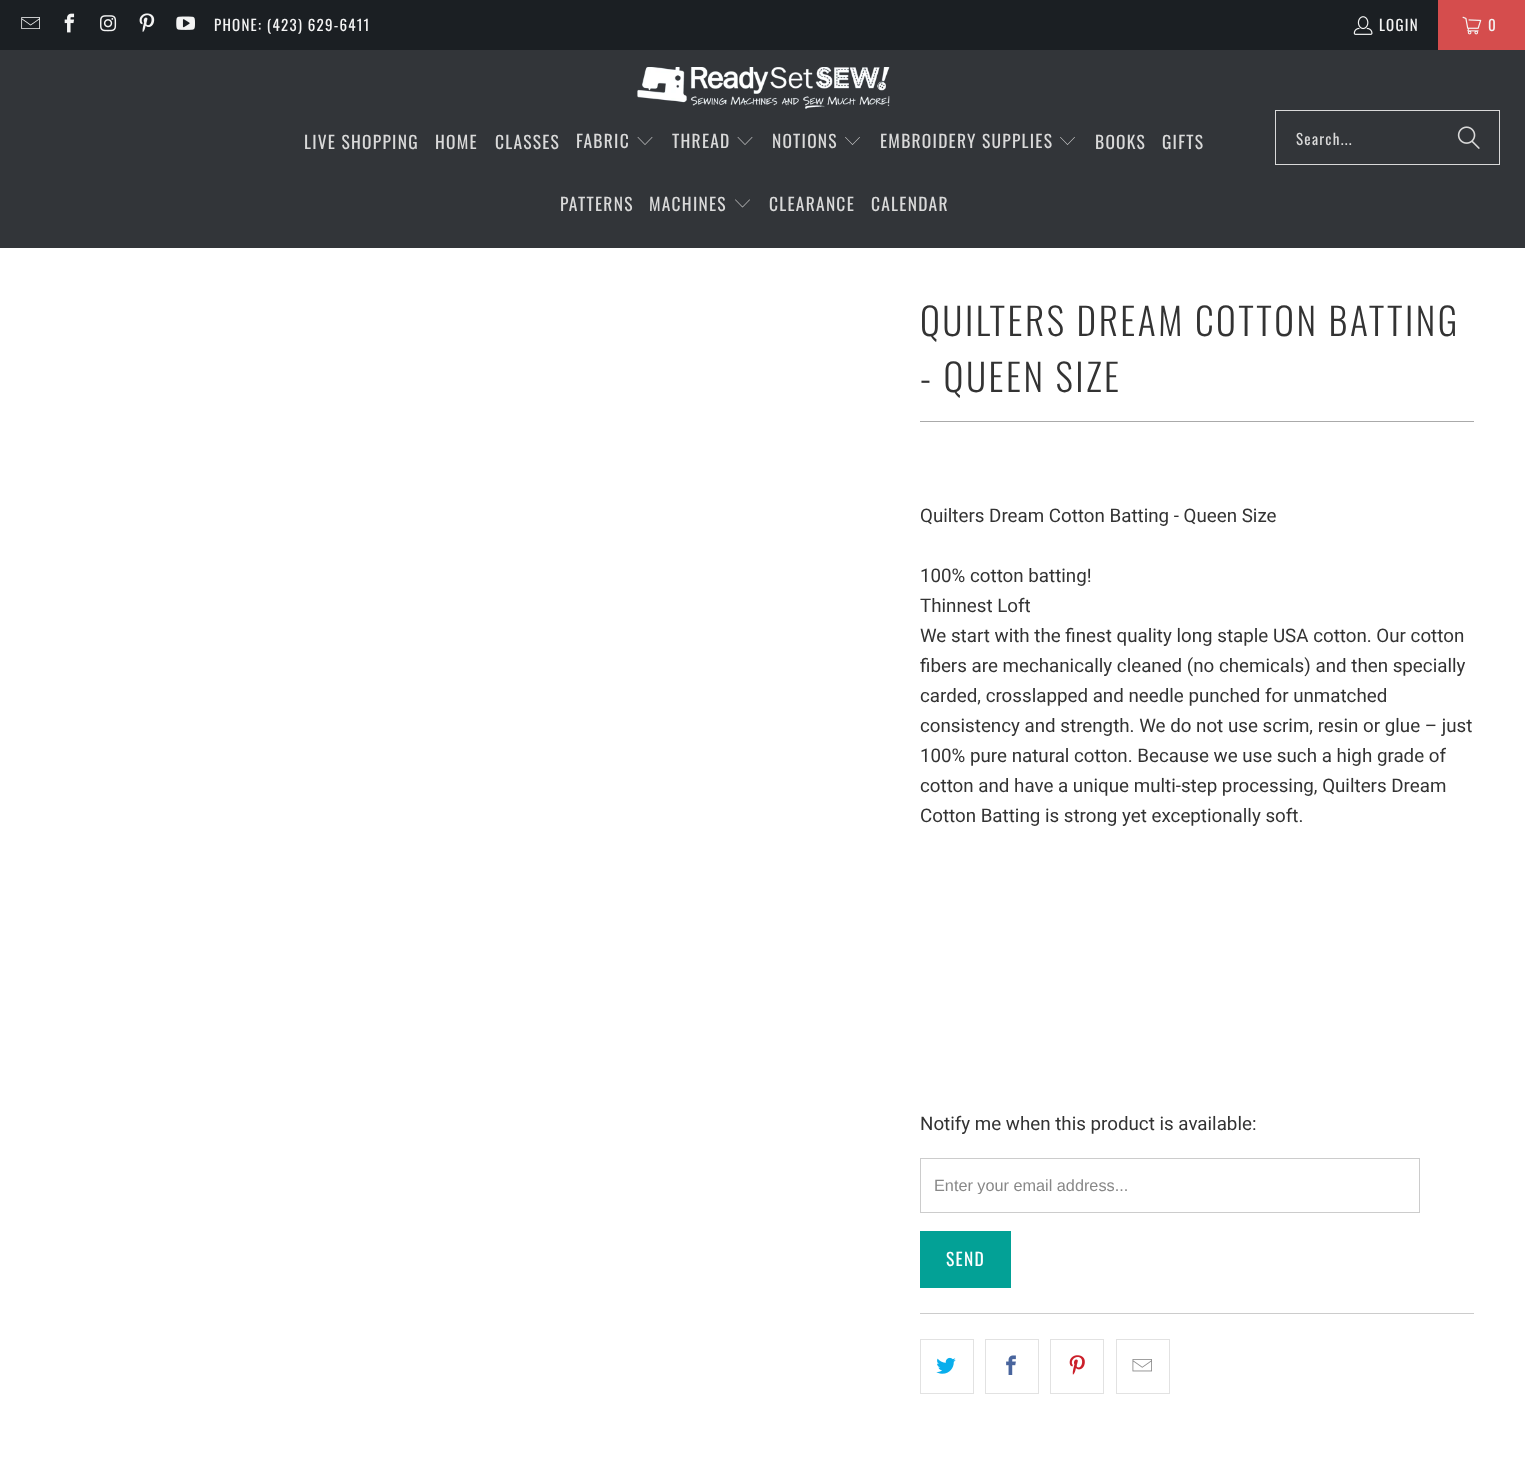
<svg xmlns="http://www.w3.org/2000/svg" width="1525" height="1468">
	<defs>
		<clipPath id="clip1"><rect x="934" y="1175" width="472" height="19" /></clipPath>
	</defs>
	<rect width="100%" height="100%" fill="#FFFFFF" />
	<rect x="0" y="0" width="1438" height="50" fill="#1B1F23" />
	<image x="21" y="17" width="19" height="12" href="assets/img1.png" />
	<image x="64" y="13" width="11" height="20" href="assets/img2.png" />
	<image x="100" y="15" width="17" height="17" href="assets/img3.png" />
	<image x="139" y="13" width="16" height="19" href="assets/img4.png" />
	<image x="176" y="16" width="19" height="14" href="assets/img5.png" />
	<text x="214" y="31" font-family="Oswald" font-size="15" letter-spacing="1.25" fill="#F4F4F4">PHONE: (423) 629-6411</text>
	<image x="1353" y="16" width="20" height="19" href="assets/img6.png" />
	<text x="1379" y="31" font-family="Oswald" font-size="15" letter-spacing="1.25" fill="#F4F4F4">LOGIN</text>
	<rect x="1438" y="0" width="87" height="50" fill="#D54D4D" />
	<image x="1462" y="16" width="20" height="19" href="assets/img7.png" />
	<text x="1488" y="31" font-family="Oswald" font-size="15" letter-spacing="1.25" fill="#F4F4F4">0</text>
	<rect x="0" y="50" width="1525" height="198" fill="#323539" />
	<image x="637" y="67" width="253" height="42" href="assets/img8.png" />
	<g font-family="Oswald" font-size="17.5" letter-spacing="1.25" fill="#D9D9D9">
		<text x="304" y="149">LIVE SHOPPING</text>
		<text x="435" y="149">HOME</text>
		<text x="495" y="149">CLASSES</text>
		<text x="576" y="148">FABRIC</text>
	</g>
	<image x="637" y="137" width="16" height="8" href="assets/img9.png" />
	<text x="672" y="148" font-family="Oswald" font-size="17.5" letter-spacing="1.25" fill="#D9D9D9">THREAD</text>
	<image x="737" y="137" width="16" height="8" href="assets/img9.png" />
	<text x="772" y="148" font-family="Oswald" font-size="17.5" letter-spacing="1.25" fill="#D9D9D9">NOTIONS</text>
	<image x="845" y="137" width="15" height="8" href="assets/img10.png" />
	<text x="880" y="148" font-family="Oswald" font-size="17.5" letter-spacing="1.25" fill="#D9D9D9">EMBROIDERY SUPPLIES</text>
	<image x="1060" y="137" width="15" height="8" href="assets/img10.png" />
	<g font-family="Oswald" font-size="17.5" letter-spacing="1.25" fill="#D9D9D9">
		<text x="1095" y="149">BOOKS</text>
		<text x="1162" y="149">GIFTS</text>
		<text x="560" y="211">PATTERNS</text>
		<text x="649" y="211">MACHINES</text>
	</g>
	<image x="735" y="199" width="15" height="9" href="assets/img11.png" />
	<g font-family="Oswald" font-size="17.5" letter-spacing="1.25" fill="#D9D9D9">
		<text x="769" y="211">CLEARANCE</text>
		<text x="871" y="211">CALENDAR</text>
	</g>
	<rect x="1275.5" y="110.5" width="224" height="54" fill="none" stroke="#D9D9D9" />
	<text x="1296" y="145" font-family="Oswald" font-size="15" letter-spacing="1.25" fill="#D9D9D9">Search...</text>
	<image x="1457" y="126" width="23" height="23" href="assets/img12.png" />
	<g font-family="Oswald" font-size="37.5" font-weight="300" letter-spacing="2.5" fill="#333333">
		<text x="920" y="336">QUILTERS DREAM COTTON BATTING</text>
		<text x="920" y="392">- QUEEN SIZE</text>
	</g>
	<rect x="920" y="421" width="554" height="1" fill="#AAAAAA" />
	<g font-family="Roboto" font-size="18.75" fill="#333333">
		<text x="920" y="522">Quilters Dream Cotton Batting - Queen Size</text>
		<text x="920" y="582">100% cotton batting!</text>
		<text x="920" y="612">Thinnest Loft</text>
		<text x="920" y="642">We start with the finest quality long staple USA cotton. Our cotton</text>
		<text x="920" y="672">fibers are mechanically cleaned (no chemicals) and then specially</text>
		<text x="920" y="702">carded, crosslapped and needle punched for unmatched</text>
		<text x="920" y="732">consistency and strength. We do not use scrim, resin or glue – just</text>
		<text x="920" y="762">100% pure natural cotton. Because we use such a high grade of</text>
		<text x="920" y="792">cotton and have a unique multi-step processing, Quilters Dream</text>
		<text x="920" y="822">Cotton Batting is strong yet exceptionally soft.</text>
		<text x="920" y="1130">Notify me when this product is available:</text>
	</g>
	<rect x="920.5" y="1158.5" width="499" height="54" fill="none" stroke="#CCCCCC" />
	<g clip-path="url(#clip1)">
		<text x="934" y="1191" font-family="Liberation Sans" font-size="16.25" fill="#888888">Enter your email address...</text>
	</g>
	<rect x="920" y="1231" width="91" height="57" fill="#03A196" />
	<text x="946" y="1266" font-family="Oswald" font-size="17.5" letter-spacing="1.25" fill="#FFFFFF">SEND</text>
	<rect x="920" y="1313" width="554" height="1" fill="#CCCCCC" />
	<rect x="920.5" y="1339.5" width="53" height="54" fill="none" stroke="#E2E2E2" />
	<image x="936" y="1357" width="20" height="17" href="assets/img13.png" />
	<rect x="985.5" y="1339.5" width="53" height="54" fill="none" stroke="#E2E2E2" />
	<image x="1006" y="1355" width="10" height="20" href="assets/img14.png" />
	<rect x="1050.5" y="1339.5" width="53" height="54" fill="none" stroke="#E2E2E2" />
	<image x="1069" y="1355" width="16" height="20" href="assets/img15.png" />
	<rect x="1116.5" y="1339.5" width="53" height="54" fill="none" stroke="#E2E2E2" />
	<image x="1132" y="1359" width="20" height="13" href="assets/img16.png" />
</svg>
